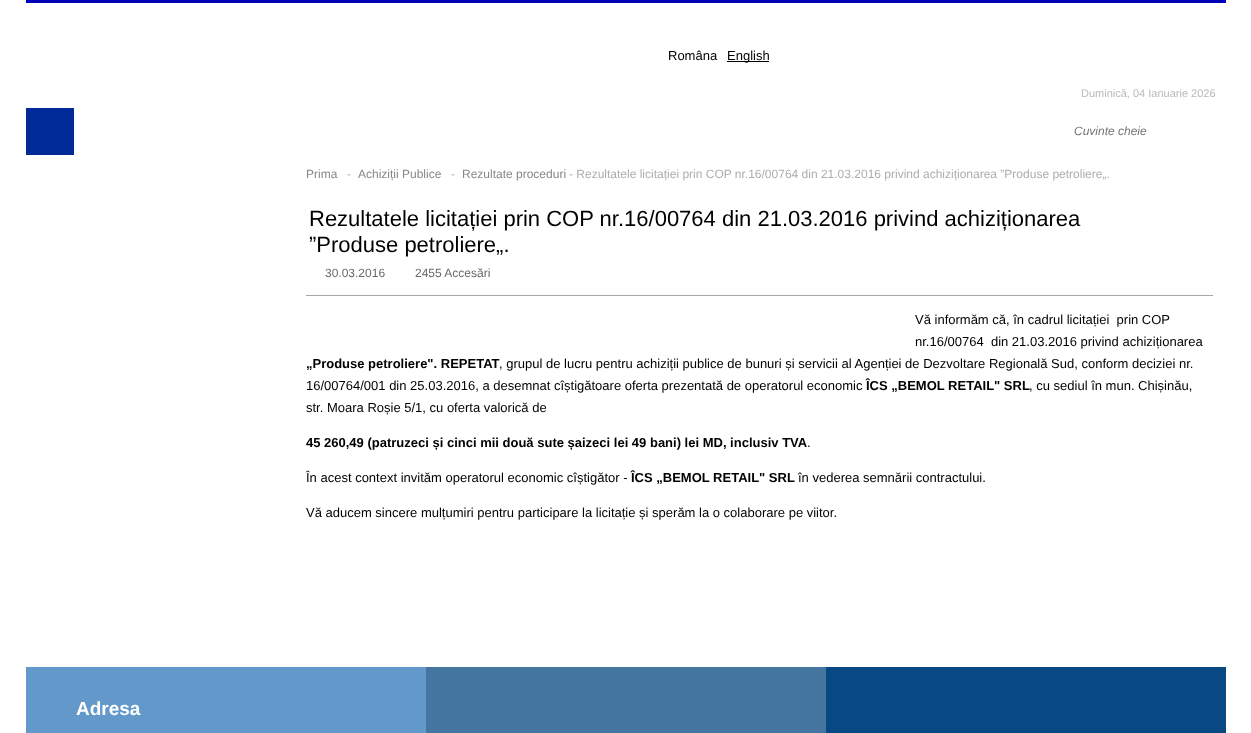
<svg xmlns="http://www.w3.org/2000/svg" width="1251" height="733">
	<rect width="100%" height="100%" fill="#FFFFFF" />
	<rect x="26" y="0" width="1200" height="3" fill="#0000B7" />
	<text x="668" y="60" font-family="Liberation Sans" font-size="13" fill="#000000">Româna</text>
	<rect x="727" y="61" width="42" height="1" fill="#000000" />
	<text x="727" y="60" font-family="Liberation Sans" font-size="13" fill="#000000">English</text>
	<text x="1081" y="97" font-family="Liberation Sans" font-size="11" fill="#BABABA">Duminică, 04 Ianuarie 2026</text>
	<rect x="26" y="108" width="48" height="47" fill="#002A98" />
	<text x="1074" y="135" font-family="Liberation Sans" font-size="12" font-style="italic" fill="#757575">Cuvinte cheie</text>
	<text x="306" y="178" font-family="Liberation Sans" font-size="12" fill="#878787">Prima</text>
	<text x="347" y="178" font-family="Liberation Sans" font-size="12" fill="#ADADAD">-</text>
	<text x="358" y="178" font-family="Liberation Sans" font-size="12" fill="#878787">Achiziții Publice</text>
	<text x="451" y="178" font-family="Liberation Sans" font-size="12" fill="#ADADAD">-</text>
	<text x="462" y="178" font-family="Liberation Sans" font-size="12" fill="#878787">Rezultate proceduri</text>
	<text x="569" y="178" font-family="Liberation Sans" font-size="12" fill="#ADADAD">- Rezultatele licitației prin COP nr.16/00764 din 21.03.2016 privind achiziționarea ”Produse petroliere„.</text>
	<rect x="306" y="295" width="907" height="1" fill="#A8A7A7" />
	<g font-family="Liberation Sans" font-size="22" fill="#000000">
		<text x="309" y="226">Rezultatele licitației prin COP nr.16/00764 din 21.03.2016 privind achiziționarea</text>
		<text x="309" y="252">”Produse petroliere„.</text>
	</g>
	<g font-family="Liberation Sans" font-size="12" fill="#6A6969">
		<text x="325" y="277">30.03.2016</text>
		<text x="415" y="277">2455 Accesări</text>
	</g>
	<g font-family="Liberation Sans" font-size="13" fill="#000000">
		<text x="915" y="324" xml:space="preserve">Vă informăm că, în cadrul licitației  prin COP</text>
		<text x="915" y="346" xml:space="preserve">nr.16/00764  din 21.03.2016 privind achiziționarea</text>
	</g>
	<text x="306" y="368" font-family="Liberation Sans" font-size="13" font-weight="700" fill="#000000">„Produse petroliere". REPETAT</text>
	<g font-family="Liberation Sans" font-size="13" fill="#000000">
		<text x="499" y="368">, grupul de lucru pentru achiziții publice de bunuri și servicii al Agenției de Dezvoltare Regională Sud, conform deciziei nr.</text>
		<text x="306" y="390">16/00764/001 din 25.03.2016, a desemnat cîștigătoare oferta prezentată de operatorul economic</text>
	</g>
	<text x="866" y="390" font-family="Liberation Sans" font-size="13" font-weight="700" fill="#000000">ÎCS „BEMOL RETAIL" SRL</text>
	<g font-family="Liberation Sans" font-size="13" fill="#000000">
		<text x="1029" y="390">, cu sediul în mun. Chișinău,</text>
		<text x="306" y="412">str. Moara Roșie 5/1, cu oferta valorică de</text>
	</g>
	<text x="306" y="447" font-family="Liberation Sans" font-size="13" font-weight="700" fill="#000000">45 260,49 (patruzeci și cinci mii două sute șaizeci lei 49 bani) lei MD, inclusiv TVA</text>
	<g font-family="Liberation Sans" font-size="13" fill="#000000">
		<text x="807" y="447">.</text>
		<text x="306" y="482">În acest context invităm operatorul economic cîștigător -</text>
	</g>
	<text x="631" y="482" font-family="Liberation Sans" font-size="13" font-weight="700" fill="#000000">ÎCS „BEMOL RETAIL" SRL</text>
	<g font-family="Liberation Sans" font-size="13" fill="#000000">
		<text x="798" y="482">în vederea semnării contractului.</text>
		<text x="306" y="517">Vă aducem sincere mulțumiri pentru participare la licitație și sperăm la o colaborare pe viitor.</text>
	</g>
	<rect x="26" y="667" width="400" height="66" fill="#6399CA" />
	<text x="76" y="715" font-family="Liberation Sans" font-size="19" font-weight="700" fill="#FFFFFF">Adresa</text>
	<rect x="426" y="667" width="400" height="66" fill="#4476A1" />
	<rect x="826" y="667" width="400" height="66" fill="#094983" />
</svg>
